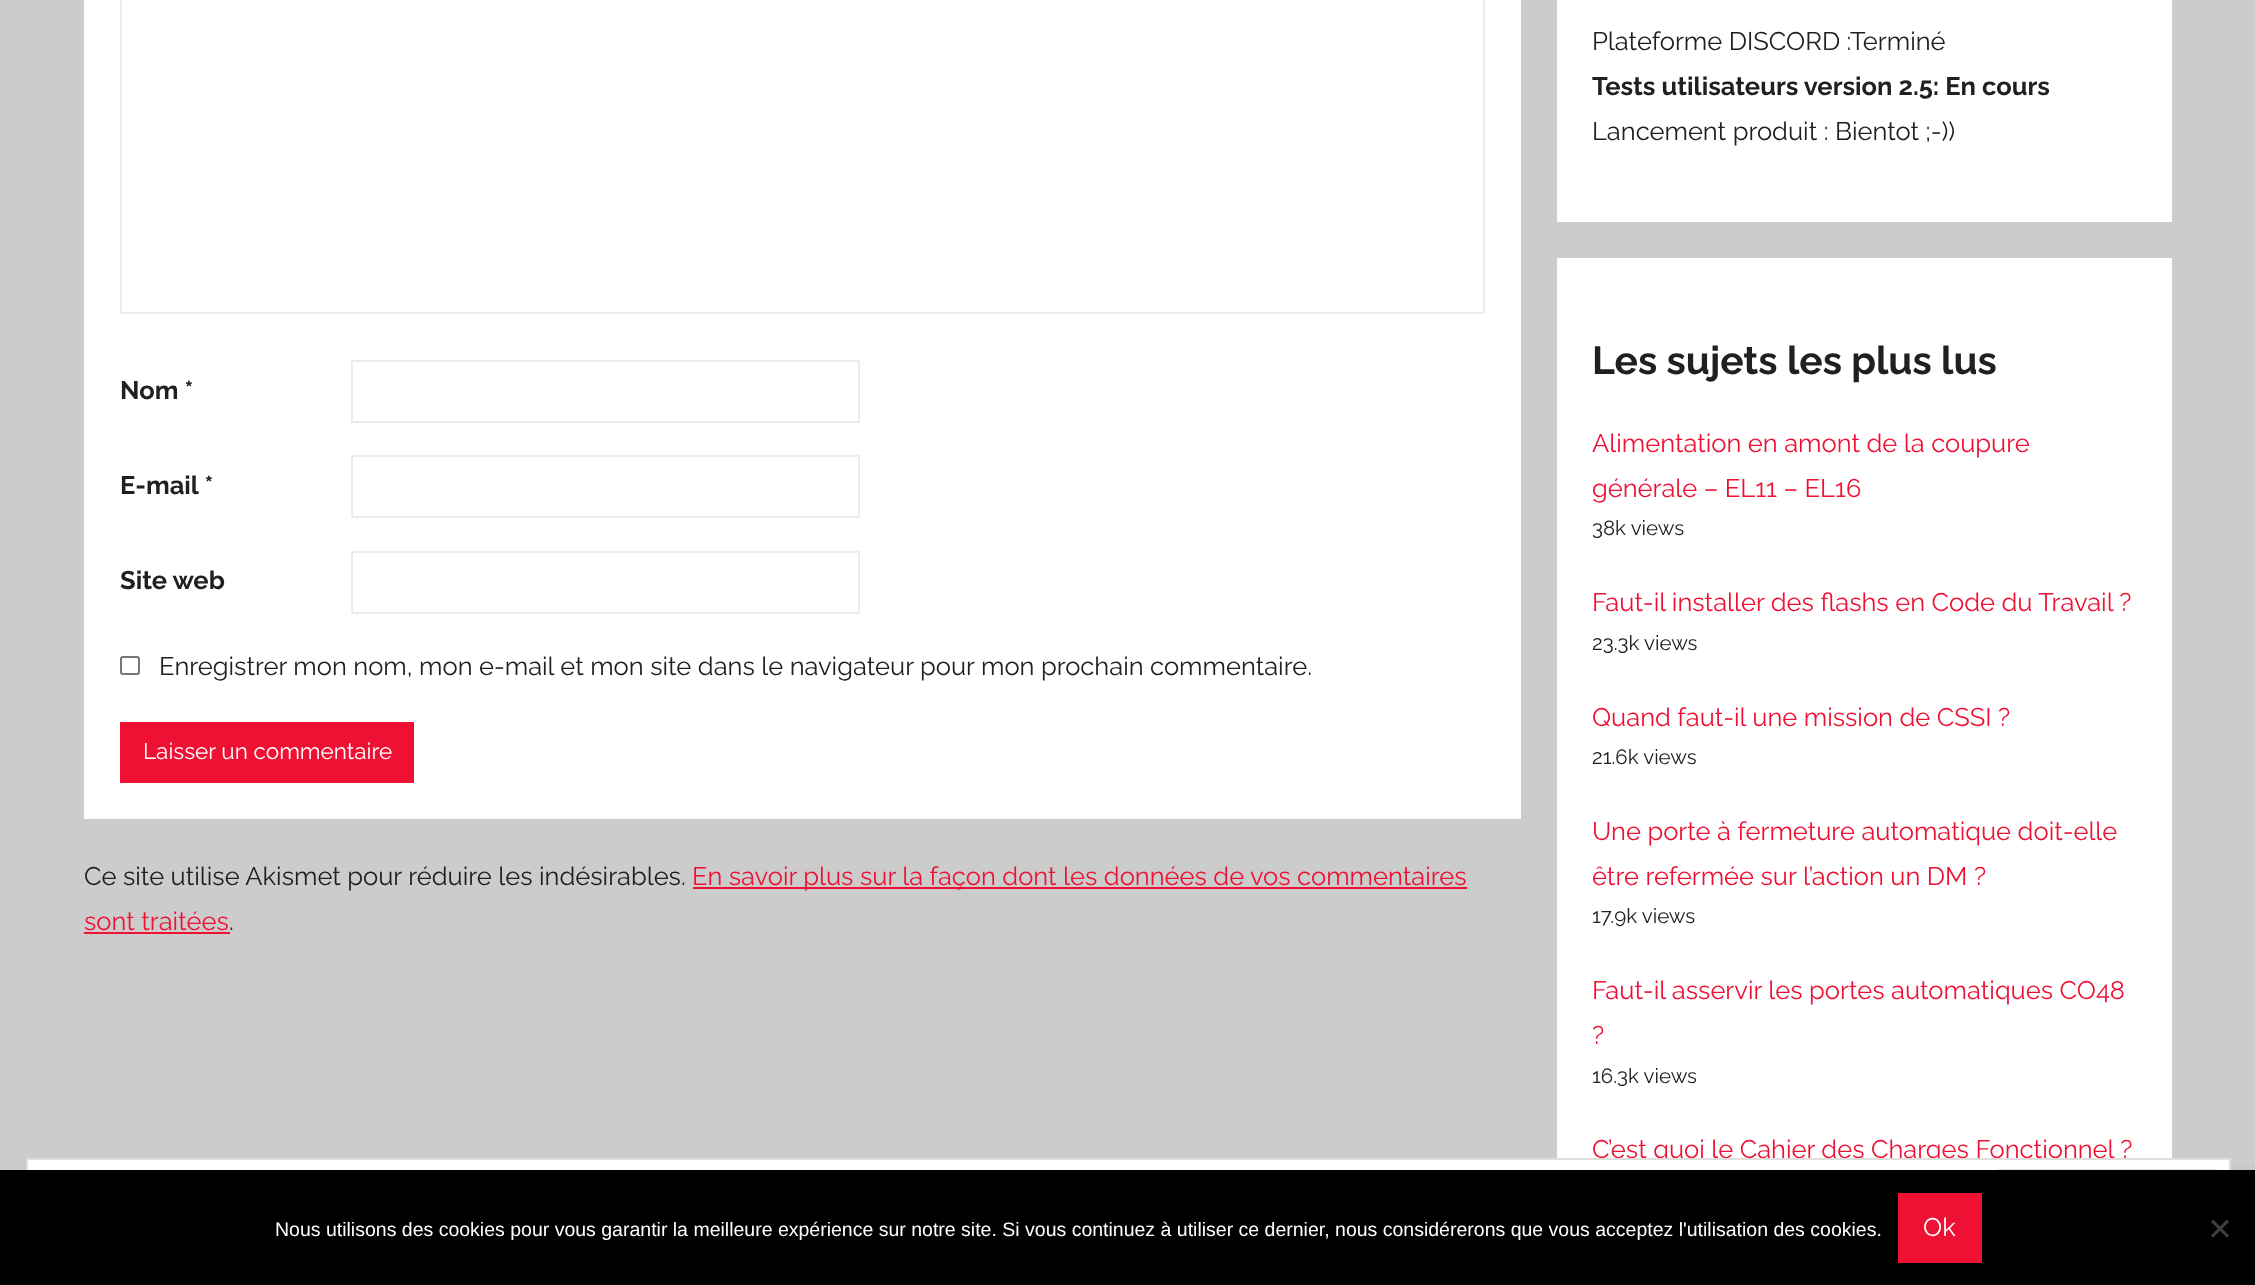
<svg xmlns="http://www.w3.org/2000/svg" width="2255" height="1285">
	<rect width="100%" height="100%" fill="#CCCCCC" />
	<rect x="84" y="0" width="1437" height="819" fill="#FFFFFF" />
	<rect x="121" y="-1" width="1363" height="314" fill="none" stroke="#ECECEC" stroke-width="2" />
	<text x="120" y="399" font-family="Raleway" font-size="25.5" font-weight="100" fill="#202020">Nom *</text>
	<rect x="352" y="361" width="507" height="61" fill="none" stroke="#ECECEC" stroke-width="2" />
	<text x="120" y="494" font-family="Raleway" font-size="25.5" font-weight="100" fill="#202020">E-mail *</text>
	<rect x="352" y="456" width="507" height="61" fill="none" stroke="#ECECEC" stroke-width="2" />
	<text x="120" y="589" font-family="Raleway" font-size="25.5" font-weight="100" fill="#202020">Site web</text>
	<rect x="352" y="552" width="507" height="61" fill="none" stroke="#ECECEC" stroke-width="2" />
	<rect x="121" y="657" width="18" height="17" rx="2" fill="none" stroke="#767676" stroke-width="2" />
	<text x="159" y="675" font-family="'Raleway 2'" font-size="25.5" font-weight="100" fill="#202020">Enregistrer mon nom, mon e-mail et mon site dans le navigateur pour mon prochain commentaire.</text>
	<rect x="120" y="722" width="294" height="61" fill="#EE1133" />
	<text x="143" y="759" font-family="'Raleway 2'" font-size="22.5" font-weight="100" fill="#FFFFFF">Laisser un commentaire</text>
	<text x="84" y="885" font-family="'Raleway 2'" font-size="25.5" font-weight="100" fill="#202020">Ce site utilise Akismet pour réduire les indésirables.</text>
	<rect x="693" y="887" width="774" height="2" fill="#EE1133" />
	<g font-family="'Raleway 2'" font-size="25.5" font-weight="100" fill="#EE1133">
		<text x="692" y="885">En savoir plus sur la façon dont les données de vos commentaires</text>
		<text x="84" y="930">sont traitées</text>
	</g>
	<rect x="84" y="932" width="146" height="2" fill="#EE1133" />
	<text x="229" y="930" font-family="'Raleway 2'" font-size="25.5" font-weight="100" fill="#202020">.</text>
	<rect x="1557" y="0" width="615" height="222" fill="#FFFFFF" />
	<text x="1592" y="50" font-family="'Raleway 2'" font-size="25.5" font-weight="100" fill="#202020">Plateforme DISCORD :Terminé</text>
	<text x="1592" y="95" font-family="Raleway" font-size="25.5" font-weight="100" fill="#202020">Tests utilisateurs version 2.5: En cours</text>
	<text x="1592" y="140" font-family="'Raleway 2'" font-size="25.5" font-weight="100" fill="#202020">Lancement produit : Bientot ;-))</text>
	<rect x="1557" y="258" width="615" height="900" fill="#FFFFFF" />
	<text x="1592" y="374" font-family="Raleway" font-size="39" font-weight="100" fill="#202020">Les sujets les plus lus</text>
	<g font-family="'Raleway 2'" font-size="25.5" font-weight="100" fill="#EE1133">
		<text x="1592" y="452">Alimentation en amont de la coupure</text>
		<text x="1592" y="497">générale – EL11 – EL16</text>
	</g>
	<text x="1592" y="535" font-family="'Raleway 2'" font-size="20.5" font-weight="100" fill="#202020">38k views</text>
	<text x="1592" y="611" font-family="'Raleway 2'" font-size="25.5" font-weight="100" fill="#EE1133">Faut-il installer des flashs en Code du Travail ?</text>
	<text x="1592" y="650" font-family="'Raleway 2'" font-size="20.5" font-weight="100" fill="#202020">23.3k views</text>
	<text x="1592" y="726" font-family="'Raleway 2'" font-size="25.5" font-weight="100" fill="#EE1133">Quand faut-il une mission de CSSI ?</text>
	<text x="1592" y="764" font-family="'Raleway 2'" font-size="20.5" font-weight="100" fill="#202020">21.6k views</text>
	<g font-family="'Raleway 2'" font-size="25.5" font-weight="100" fill="#EE1133">
		<text x="1592" y="840">Une porte à fermeture automatique doit-elle</text>
		<text x="1592" y="885">être refermée sur l’action un DM ?</text>
	</g>
	<text x="1592" y="923" font-family="'Raleway 2'" font-size="20.5" font-weight="100" fill="#202020">17.9k views</text>
	<g font-family="'Raleway 2'" font-size="25.5" font-weight="100" fill="#EE1133">
		<text x="1592" y="999">Faut-il asservir les portes automatiques CO48</text>
		<text x="1592" y="1044">?</text>
	</g>
	<text x="1592" y="1083" font-family="'Raleway 2'" font-size="20.5" font-weight="100" fill="#202020">16.3k views</text>
	<text x="1592" y="1158" font-family="'Raleway 2'" font-size="25.5" font-weight="100" fill="#EE1133">C’est quoi le Cahier des Charges Fonctionnel ?</text>
	<rect x="2151" y="1175" width="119" height="90" rx="3" fill="#808080" filter="blur(4px)" />
	<rect x="28" y="1160" width="2201" height="10" fill="#FFFFFF" />
	<rect x="27" y="1159" width="2203" height="100" fill="none" stroke="#DEDEDE" stroke-width="2" />
	<rect x="1996" y="1170" width="223" height="56" rx="4" fill="none" stroke="#DEDEDE" stroke-width="2" />
	<rect x="0" y="1170" width="2255" height="115" fill="#000000" />
	<text x="275" y="1236" font-family="Liberation Sans" font-size="19.5" fill="#FFFFFF">Nous utilisons des cookies pour vous garantir la meilleure expérience sur notre site. Si vous continuez à utiliser ce dernier, nous considérerons que vous acceptez l'utilisation des cookies.</text>
	<rect x="1898" y="1193" width="84" height="70" fill="#EE1133" />
	<text x="1923" y="1236" font-family="'Raleway 2'" font-size="25.5" font-weight="100" fill="#FFFFFF">Ok</text>
	<path d="M2227 1219.5L2229 1222L2213 1237.5L2211 1235.5Z" fill="#404040" />
	<path d="M2211 1222L2213 1219.5L2229 1235.5L2227 1237.5Z" fill="#404040" />
</svg>
